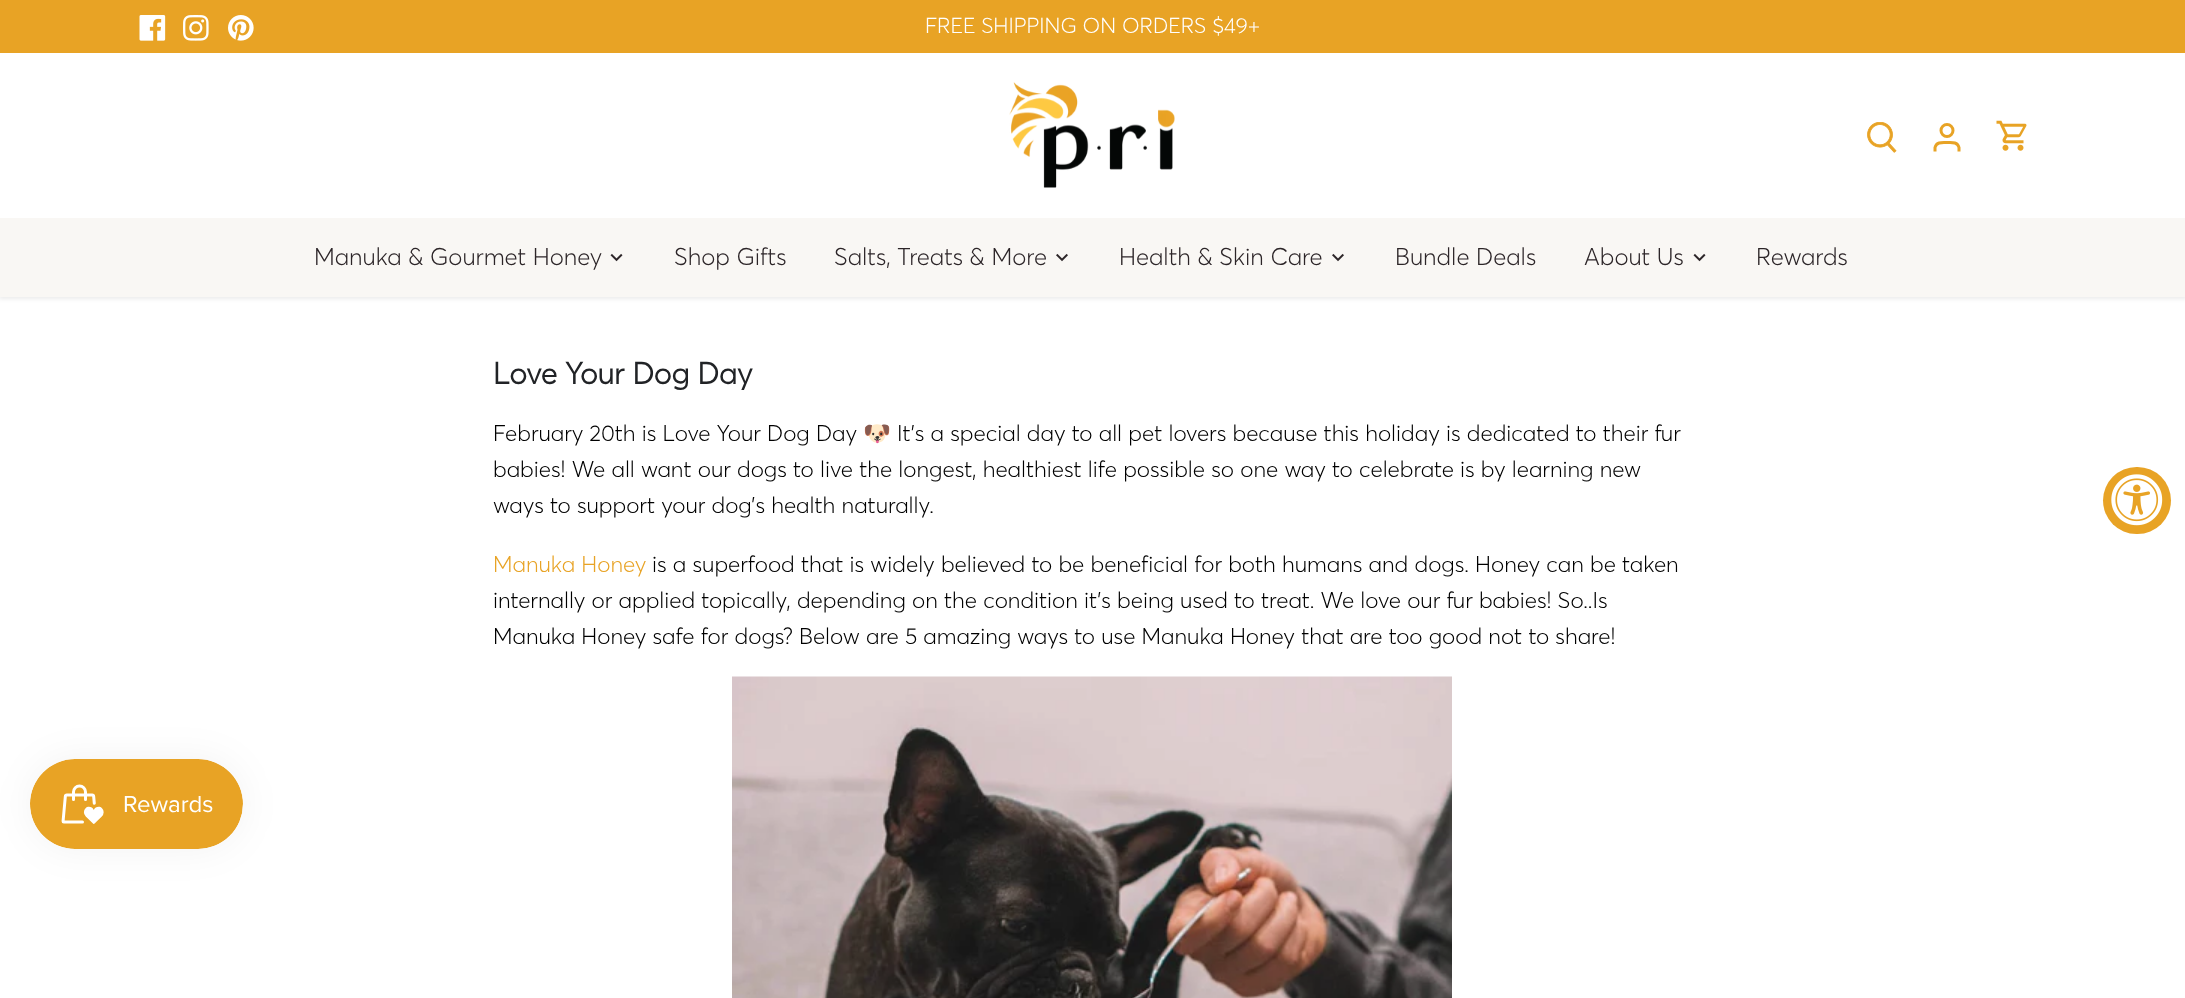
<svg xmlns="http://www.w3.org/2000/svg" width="2185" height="998">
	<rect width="100%" height="100%" fill="#FFFFFF" />
	<rect x="-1" y="51" width="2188" height="248" fill="#000000" fill-opacity="0.08" filter="blur(2px)" />
	<rect x="0" y="0" width="2185" height="53" fill="#E8A325" />
	<image x="139" y="15" width="27" height="26" href="assets/img1.png" />
	<image x="183" y="15" width="26" height="26" href="assets/img2.png" />
	<image x="228" y="15" width="26" height="26" href="assets/img3.png" />
	<text x="925" y="33" font-family="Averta" font-size="21.4" font-weight="300" fill="#FFFFFF">FREE SHIPPING ON ORDERS $49+</text>
	<rect x="0" y="218" width="2185" height="79" fill="#F9F7F4" />
	<rect x="0" y="53" width="2185" height="165" fill="#FFFFFF" />
	<image x="1009" y="82" width="166" height="106" href="assets/img4.png" />
	<image x="1867" y="122" width="30" height="31" href="assets/img5.png" />
	<circle cx="1947" cy="130.5" r="6" fill="none" stroke="#E8A325" stroke-width="3" />
	<path d="M1959 151.5V147.5C1957.5 141.5 1951.5 142.5 1947 142.5C1942.5 142.5 1936.5 141.5 1935 147.5V151.5" fill="none" stroke="#E8A325" stroke-width="3" />
	<image x="1996" y="120" width="31" height="31" href="assets/img6.png" />
	<text x="314" y="265" font-family="Averta" font-size="24" font-weight="300" fill="#2C2528">Manuka &amp; Gourmet Honey</text>
	<image x="610" y="253" width="13" height="9" href="assets/img7.png" />
	<g font-family="Averta" font-size="24" font-weight="300" fill="#2C2528">
		<text x="674" y="265">Shop Gifts</text>
		<text x="834" y="265">Salts, Treats &amp; More</text>
	</g>
	<image x="1056" y="253" width="12" height="9" href="assets/img8.png" />
	<text x="1119" y="265" font-family="Averta" font-size="24" font-weight="300" fill="#2C2528">Health &amp; Skin Care</text>
	<image x="1332" y="253" width="12" height="9" href="assets/img8.png" />
	<g font-family="Averta" font-size="24" font-weight="300" fill="#2C2528">
		<text x="1395" y="265">Bundle Deals</text>
		<text x="1584" y="265">About Us</text>
	</g>
	<image x="1693" y="253" width="13" height="9" href="assets/img7.png" />
	<text x="1756" y="265" font-family="Averta" font-size="24" font-weight="300" fill="#2C2528">Rewards</text>
	<text x="493" y="384" font-family="Averta" font-size="30" font-weight="700" fill="#212326">Love Your Dog Day</text>
	<text x="493" y="441" font-family="Averta" font-size="22.5" font-weight="300" fill="#000000">February 20th is Love Your Dog Day</text>
	<text x="863" y="441" font-family="Noto Color Emoji" font-size="22.5" fill="#000000">🐶</text>
	<g font-family="Averta" font-size="22.5" font-weight="300" fill="#000000">
		<text x="897" y="441">It’s a special day to all pet lovers because this holiday is dedicated to their fur</text>
		<text x="493" y="477">babies! We all want our dogs to live the longest, healthiest life possible so one way to celebrate is by learning new</text>
		<text x="493" y="513">ways to support your dog’s health naturally.</text>
	</g>
	<text x="493" y="572" font-family="Averta" font-size="22.5" font-weight="300" fill="#E8A325">Manuka Honey</text>
	<g font-family="Averta" font-size="22.5" font-weight="300" fill="#000000">
		<text x="652" y="572">is a superfood that is widely believed to be beneficial for both humans and dogs. Honey can be taken</text>
		<text x="493" y="608">internally or applied topically, depending on the condition it’s being used to treat. We love our fur babies! So..Is</text>
		<text x="493" y="644">Manuka Honey safe for dogs? Below are 5 amazing ways to use Manuka Honey that are too good not to share!</text>
	</g>
	<image x="732" y="676" width="720" height="322" href="assets/img9.png" />
	<rect x="2103" y="467" width="68" height="67" rx="33.5" fill="#E8A325" />
	<image x="2111" y="474" width="52" height="52" href="assets/img10.png" />
	<rect x="30" y="759" width="213" height="90" rx="45" fill="#000000" fill-opacity="0.05" filter="blur(19px)" />
	<image x="30" y="759" width="213" height="90" href="assets/img11.png" />
</svg>
